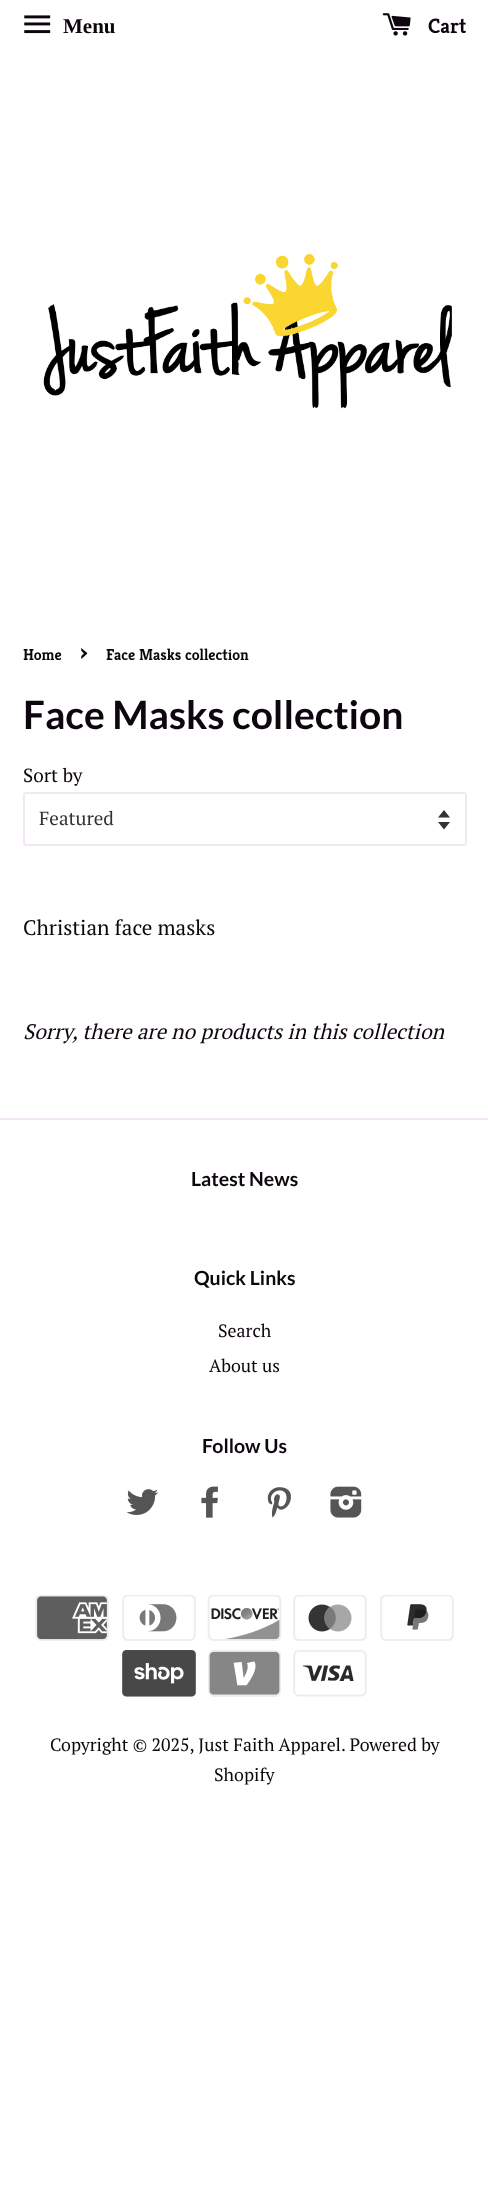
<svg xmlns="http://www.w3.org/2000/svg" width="488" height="2209">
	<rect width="100%" height="100%" fill="#FFFFFF" />
	<image x="24" y="15" width="27" height="19" href="assets/img1.png" />
	<text x="63" y="33" font-family="Liberation Serif" font-size="21" font-weight="700" fill="#0E060F">Menu</text>
	<image x="382" y="13" width="29" height="23" href="assets/img2.png" />
	<text x="428" y="33" font-family="Kreon" font-size="21" font-weight="300" fill="#0E060F">Cart</text>
	<image x="43" y="254" width="409" height="155" href="assets/img3.png" />
	<text x="23" y="660" font-family="Kreon" font-size="15.75" font-weight="300" fill="#0E060F">Home</text>
	<text x="80" y="660" font-family="Kreon" font-size="22" font-weight="300" fill="#0E060F">›</text>
	<text x="106" y="660" font-family="Kreon" font-size="15.75" font-weight="300" fill="#0E060F">Face Masks collection</text>
	<text x="23" y="729" font-family="Lato" font-size="39" font-weight="700" fill="#0E060F">Face Masks collection</text>
	<text x="23" y="782" font-family="PT Serif" font-size="19" fill="#0E060F">Sort by</text>
	<image x="438" y="810" width="12" height="20" href="assets/img4.png" />
	<rect x="24" y="793" width="442" height="52" rx="2" fill="none" stroke="#F4E7F5" stroke-width="2" />
	<text x="39" y="825" font-family="PT Serif" font-size="19" fill="#333333">Featured</text>
	<text x="23" y="935" font-family="PT Serif" font-size="21" fill="#0E060F">Christian face masks</text>
	<text x="23" y="1039" font-family="PT Serif" font-size="21" font-style="italic" fill="#0E060F">Sorry, there are no products in this collection</text>
	<rect x="0" y="1118" width="488" height="2" fill="#F4E7F5" />
	<g font-family="Lato" font-size="19.5" font-weight="700" fill="#0E060F">
		<text x="191" y="1186">Latest News</text>
		<text x="194" y="1285">Quick Links</text>
	</g>
	<g font-family="PT Serif" font-size="17.85" fill="#0E060F">
		<text x="218" y="1337">Search</text>
		<text x="209" y="1372">About us</text>
	</g>
	<text x="202" y="1453" font-family="Lato" font-size="19.5" font-weight="700" fill="#0E060F">Follow Us</text>
	<image x="126" y="1489" width="33" height="26" href="assets/img5.png" />
	<image x="201" y="1486" width="17" height="32" href="assets/img6.png" />
	<image x="267" y="1487" width="24" height="31" href="assets/img7.png" />
	<image x="330" y="1486" width="32" height="32" href="assets/img8.png" />
	<image x="35" y="1595" width="74" height="46" href="assets/img9.png" />
	<image x="122" y="1595" width="74" height="46" href="assets/img10.png" />
	<image x="207" y="1595" width="75" height="46" href="assets/img11.png" />
	<image x="293" y="1595" width="74" height="46" href="assets/img12.png" />
	<image x="380" y="1595" width="74" height="46" href="assets/img13.png" />
	<image x="122" y="1650" width="74" height="47" href="assets/img14.png" />
	<image x="208" y="1650" width="73" height="47" href="assets/img15.png" />
	<image x="293" y="1650" width="74" height="47" href="assets/img16.png" />
	<g font-family="PT Serif" font-size="17.85" fill="#0E060F">
		<text x="50" y="1751">Copyright © 2025, Just Faith Apparel. Powered by</text>
		<text x="214" y="1781">Shopify</text>
	</g>
</svg>
